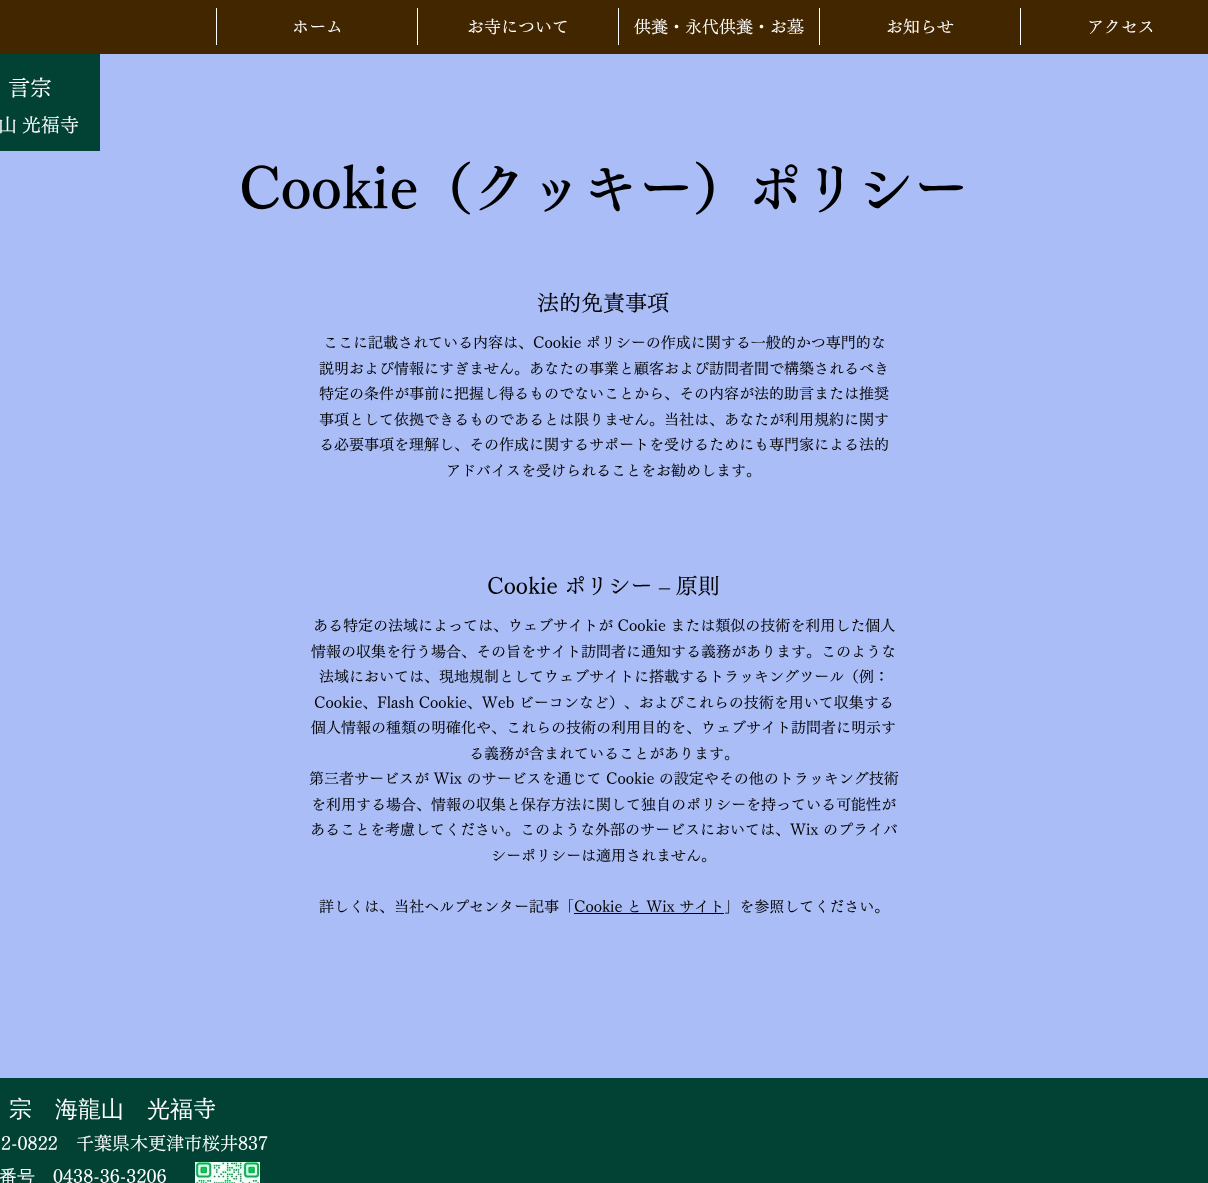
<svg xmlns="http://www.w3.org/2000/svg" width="1208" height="1183">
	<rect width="100%" height="100%" fill="#AABDF6" />
	<rect x="0" y="0" width="1208" height="54" fill="#422600" />
	<rect x="216" y="8" width="1" height="37" fill="#FFFFFF" />
	<text x="292" y="33" font-family="'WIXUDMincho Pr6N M'" font-size="17" font-weight="500" fill="#FFFFFF">ホーム</text>
	<rect x="417" y="8" width="1" height="37" fill="#FFFFFF" />
	<text x="467" y="33" font-family="'WIXUDMincho Pr6N M'" font-size="17" font-weight="500" fill="#FFFFFF">お寺について</text>
	<rect x="618" y="8" width="1" height="37" fill="#FFFFFF" />
	<text x="634" y="33" font-family="'WIXUDMincho Pr6N M'" font-size="17" font-weight="500" fill="#FFFFFF">供養・永代供養・お墓</text>
	<rect x="819" y="8" width="1" height="37" fill="#FFFFFF" />
	<text x="886" y="33" font-family="'WIXUDMincho Pr6N M'" font-size="17" font-weight="500" fill="#FFFFFF">お知らせ</text>
	<rect x="1020" y="8" width="1" height="37" fill="#FFFFFF" />
	<text x="1087" y="33" font-family="'WIXUDMincho Pr6N M'" font-size="17" font-weight="500" fill="#FFFFFF">アクセス</text>
	<rect x="0" y="54" width="100" height="97" fill="#014235" />
	<text x="8" y="96" font-family="'WIXUDMincho Pr6N M'" font-size="22" font-weight="500" fill="#FFFFFF">言宗</text>
	<g font-family="'WIXUDMincho Pr6N M'" font-size="19" font-weight="500" fill="#FFFFFF">
		<text x="-2" y="132">山</text>
		<text x="22" y="132">光福寺</text>
	</g>
	<text x="239" y="209" font-family="'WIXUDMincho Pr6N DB'" font-size="55" font-weight="600" fill="#000000">Cookie（クッキー）ポリシー</text>
	<text x="537" y="311" font-family="'WIXUDMincho Pr6N M'" font-size="22" font-weight="500" fill="#000000">法的免責事項</text>
	<g font-family="'WIXUDMincho Pr6N M'" font-size="15" font-weight="500" fill="#000000">
		<text x="323" y="348">ここに記載されている内容は、Cookie ポリシーの作成に関する一般的かつ専門的な</text>
		<text x="319" y="374">説明および情報にすぎません。あなたの事業と顧客および訪問者間で構築されるべき</text>
		<text x="319" y="399">特定の条件が事前に把握し得るものでないことから、その内容が法的助言または推奨</text>
		<text x="319" y="425">事項として依拠できるものであるとは限りません。当社は、あなたが利用規約に関す</text>
		<text x="319" y="450">る必要事項を理解し、その作成に関するサポートを受けるためにも専門家による法的</text>
		<text x="446" y="476">アドバイスを受けられることをお勧めします。</text>
	</g>
	<text x="487" y="594" font-family="'WIXUDMincho Pr6N M'" font-size="22" font-weight="500" fill="#000000">Cookie ポリシー</text>
	<text x="659" y="594" font-family="Liberation Serif" font-size="22" fill="#000000">–</text>
	<text x="676" y="594" font-family="'WIXUDMincho Pr6N M'" font-size="22" font-weight="500" fill="#000000">原則</text>
	<g font-family="'WIXUDMincho Pr6N M'" font-size="15" font-weight="500" fill="#000000">
		<text x="313" y="631">ある特定の法域によっては、ウェブサイトが Cookie または類似の技術を利用した個人</text>
		<text x="311" y="657">情報の収集を行う場合、その旨をサイト訪問者に通知する義務があります。このような</text>
		<text x="319" y="682">法域においては、現地規制としてウェブサイトに搭載するトラッキングツール（例：</text>
		<text x="314" y="708">Cookie、Flash Cookie、Web ビーコンなど）、およびこれらの技術を用いて収集する</text>
		<text x="311" y="733">個人情報の種類の明確化や、これらの技術の利用目的を、ウェブサイト訪問者に明示す</text>
		<text x="469" y="759">る義務が含まれていることがあります。</text>
		<text x="309" y="784">第三者サービスが Wix のサービスを通じて Cookie の設定やその他のトラッキング技術</text>
		<text x="311" y="810">を利用する場合、情報の収集と保存方法に関して独自のポリシーを持っている可能性が</text>
		<text x="310" y="835">あることを考慮してください。このような外部のサービスにおいては、Wix のプライバ</text>
		<text x="491" y="861">シーポリシーは適用されません。</text>
		<text x="319" y="912">詳しくは、当社ヘルプセンター記事「Cookie と Wix サイト」を参照してください。</text>
	</g>
	<rect x="574" y="913" width="150" height="1" fill="#000000" />
	<rect x="0" y="1078" width="1208" height="105" fill="#014235" />
	<text x="9" y="1117" font-family="WenQuanYi Zen Hei" font-size="23" font-weight="500" fill="#FFFFFF">宗　海龍山　光福</text>
	<text x="193" y="1117" font-family="'WIXUDMincho Pr6N M'" font-size="23" font-weight="500" fill="#FFFFFF">寺</text>
	<g font-family="'WIXUDMincho Pr6N M'" font-size="18" font-weight="500" fill="#FFFFFF">
		<text x="1" y="1150">2-0822</text>
		<text x="76" y="1150">千葉県木更津市桜井837</text>
	</g>
	<text x="-1" y="1183" font-family="WenQuanYi Zen Hei" font-size="18" font-weight="500" fill="#FFFFFF">番号</text>
	<text x="53" y="1183" font-family="'WIXUDMincho Pr6N M'" font-size="18" font-weight="500" fill="#FFFFFF">0438-36-3206</text>
	<image x="195" y="1162" width="65" height="21" href="assets/img1.png" />
</svg>
